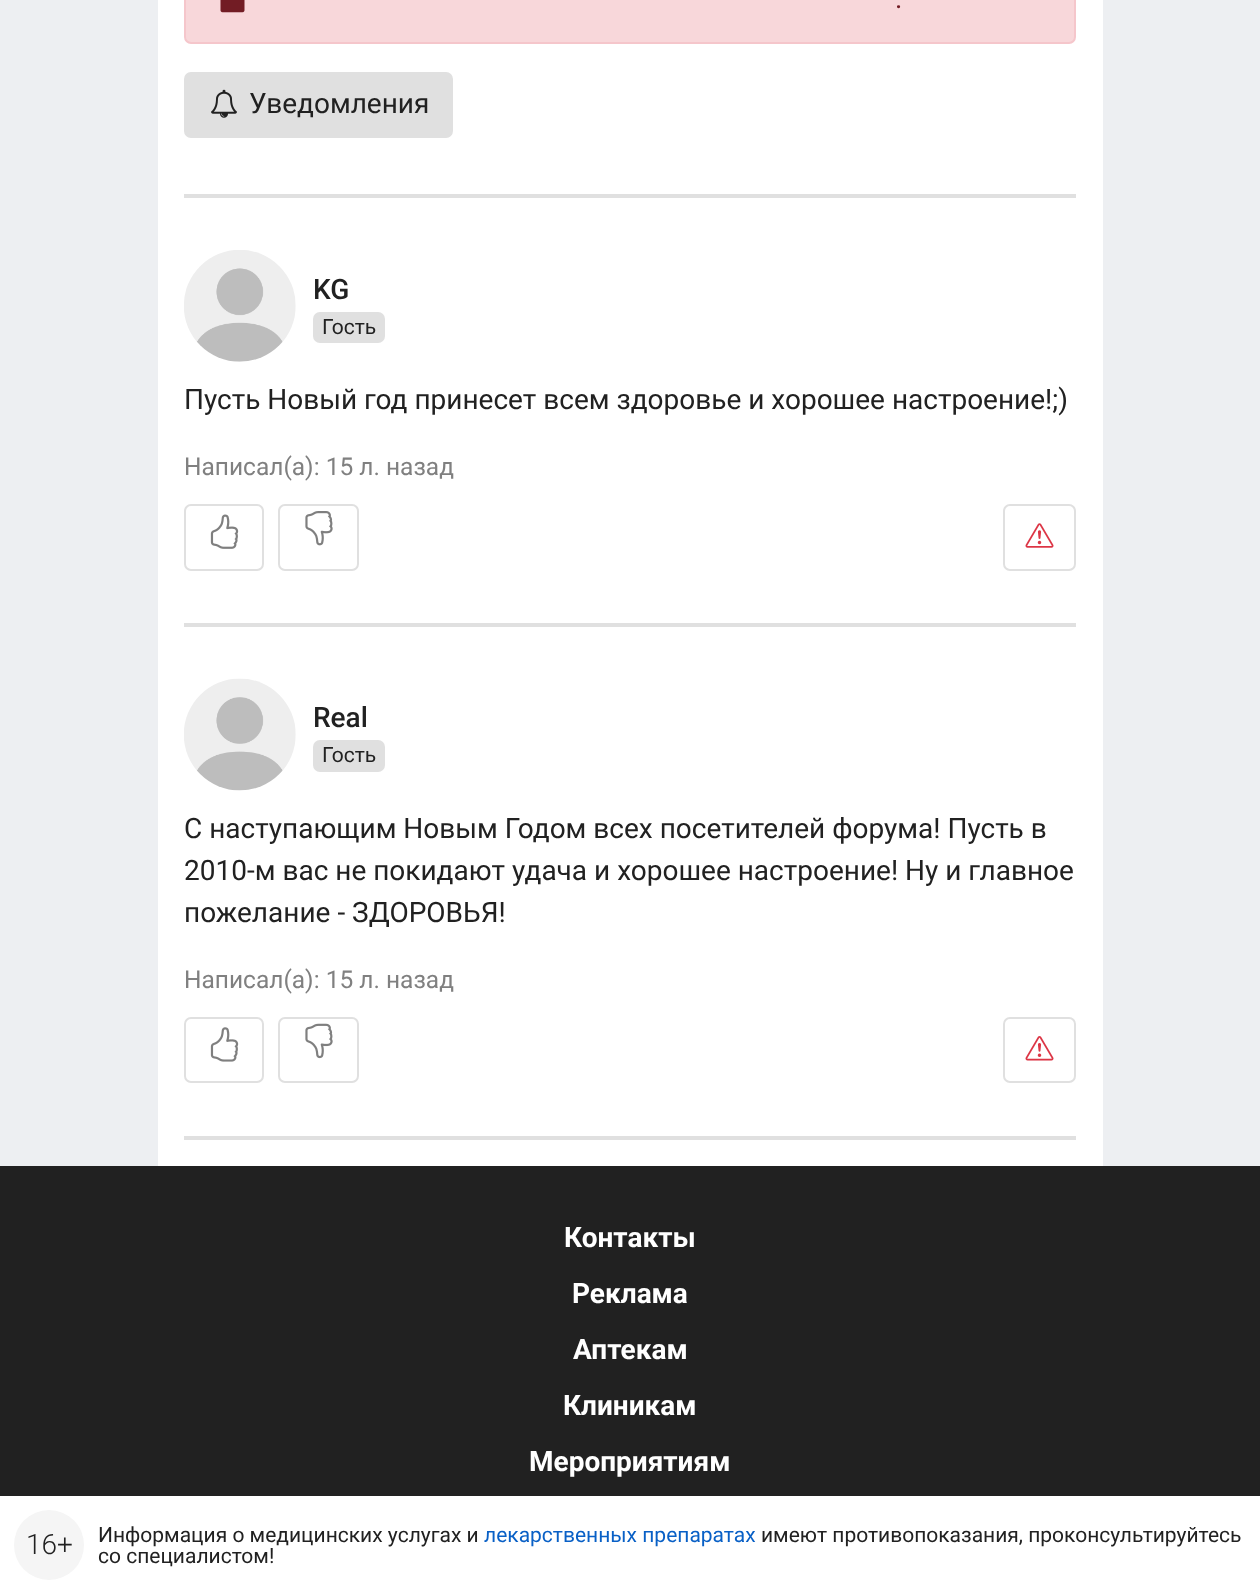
<svg xmlns="http://www.w3.org/2000/svg" width="1260" height="1593">
	<rect width="100%" height="100%" fill="#EDEFF2" />
	<rect x="158" y="0" width="945" height="1166" fill="#FFFFFF" />
	<rect x="185" y="-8" width="890" height="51" rx="6" fill="#F8D7DA" stroke="#F5C6CB" stroke-width="2" />
	<image x="220" y="0" width="25" height="13" href="assets/img1.png" />
	<text x="895" y="8" font-family="Roboto" font-size="28" fill="#721C24">.</text>
	<rect x="185" y="73" width="267" height="64" rx="6" fill="#E0E0E0" stroke="#E0E0E0" stroke-width="2" />
	<image x="211" y="89" width="26" height="29" href="assets/img2.png" />
	<text x="249" y="113" font-family="Roboto" font-size="28" fill="#212121">Уведомления</text>
	<rect x="184" y="1136" width="892" height="4" fill="#E0E0E0" />
	<rect x="184" y="194" width="892" height="4" fill="#E0E0E0" />
	<image x="184" y="250" width="112" height="112" href="assets/img3.png" />
	<text x="313" y="299" font-family="Roboto" font-size="28" font-weight="500" fill="#212121">KG</text>
	<rect x="313" y="312" width="72" height="31" rx="7" fill="#E0E0E0" />
	<text x="322" y="334" font-family="Roboto" font-size="21" fill="#212121">Гость</text>
	<text x="184" y="409" font-family="Roboto" font-size="28" fill="#212121">Пусть Новый год принесет всем здоровье и хорошее настроение!;)</text>
	<text x="184" y="475" font-family="Roboto" font-size="24.5" fill="#808080">Написал(а): 15 л. назад</text>
	<rect x="185" y="505" width="78" height="65" rx="6" fill="none" stroke="#E0E0E0" stroke-width="2" />
	<image x="210" y="514" width="29" height="35" href="assets/img4.png" />
	<rect x="279" y="505" width="79" height="65" rx="6" fill="none" stroke="#E0E0E0" stroke-width="2" />
	<image x="305" y="511" width="28" height="35" href="assets/img5.png" />
	<rect x="1004" y="505" width="71" height="65" rx="6" fill="none" stroke="#E0E0E0" stroke-width="2" />
	<image x="1025" y="523" width="29" height="25" href="assets/img6.png" />
	<rect x="184" y="623" width="892" height="4" fill="#E0E0E0" />
	<image x="184" y="678" width="112" height="113" href="assets/img7.png" />
	<text x="313" y="727" font-family="Roboto" font-size="28" font-weight="500" fill="#212121">Real</text>
	<rect x="313" y="740" width="72" height="32" rx="7" fill="#E0E0E0" />
	<text x="322" y="762" font-family="Roboto" font-size="21" fill="#212121">Гость</text>
	<g font-family="Roboto" font-size="28" fill="#212121">
		<text x="184" y="838">С наступающим Новым Годом всех посетителей форума! Пусть в</text>
		<text x="184" y="880">2010-м вас не покидают удача и хорошее настроение! Ну и главное</text>
		<text x="184" y="922">пожелание - ЗДОРОВЬЯ!</text>
	</g>
	<text x="184" y="988" font-family="Roboto" font-size="24.5" fill="#808080">Написал(а): 15 л. назад</text>
	<rect x="185" y="1018" width="78" height="64" rx="6" fill="none" stroke="#E0E0E0" stroke-width="2" />
	<image x="210" y="1027" width="29" height="35" href="assets/img8.png" />
	<rect x="279" y="1018" width="79" height="64" rx="6" fill="none" stroke="#E0E0E0" stroke-width="2" />
	<image x="305" y="1023" width="28" height="36" href="assets/img9.png" />
	<rect x="1004" y="1018" width="71" height="64" rx="6" fill="none" stroke="#E0E0E0" stroke-width="2" />
	<image x="1025" y="1036" width="29" height="25" href="assets/img10.png" />
	<rect x="0" y="1166" width="1260" height="330" fill="#212121" />
	<g font-family="Roboto" font-size="28" font-weight="700" fill="#FFFFFF">
		<text x="564" y="1247">Контакты</text>
		<text x="572" y="1303">Реклама</text>
		<text x="573" y="1359">Аптекам</text>
		<text x="563" y="1415">Клиникам</text>
		<text x="529" y="1471">Мероприятиям</text>
	</g>
	<rect x="0" y="1496" width="1260" height="97" fill="#FFFFFF" />
	<circle cx="49" cy="1545" r="35" fill="#F5F5F5" />
	<text x="26" y="1554" font-family="Roboto" font-size="28" font-weight="300" fill="#212121">16+</text>
	<text x="98" y="1542" font-family="Roboto" font-size="21" fill="#212121">Информация о медицинских услугах и</text>
	<text x="484" y="1542" font-family="Roboto" font-size="21" fill="#0960C6">лекарственных препаратах</text>
	<g font-family="Roboto" font-size="21" fill="#212121">
		<text x="761" y="1542">имеют противопоказания, проконсультируйтесь</text>
		<text x="98" y="1563">со специалистом!</text>
	</g>
</svg>
